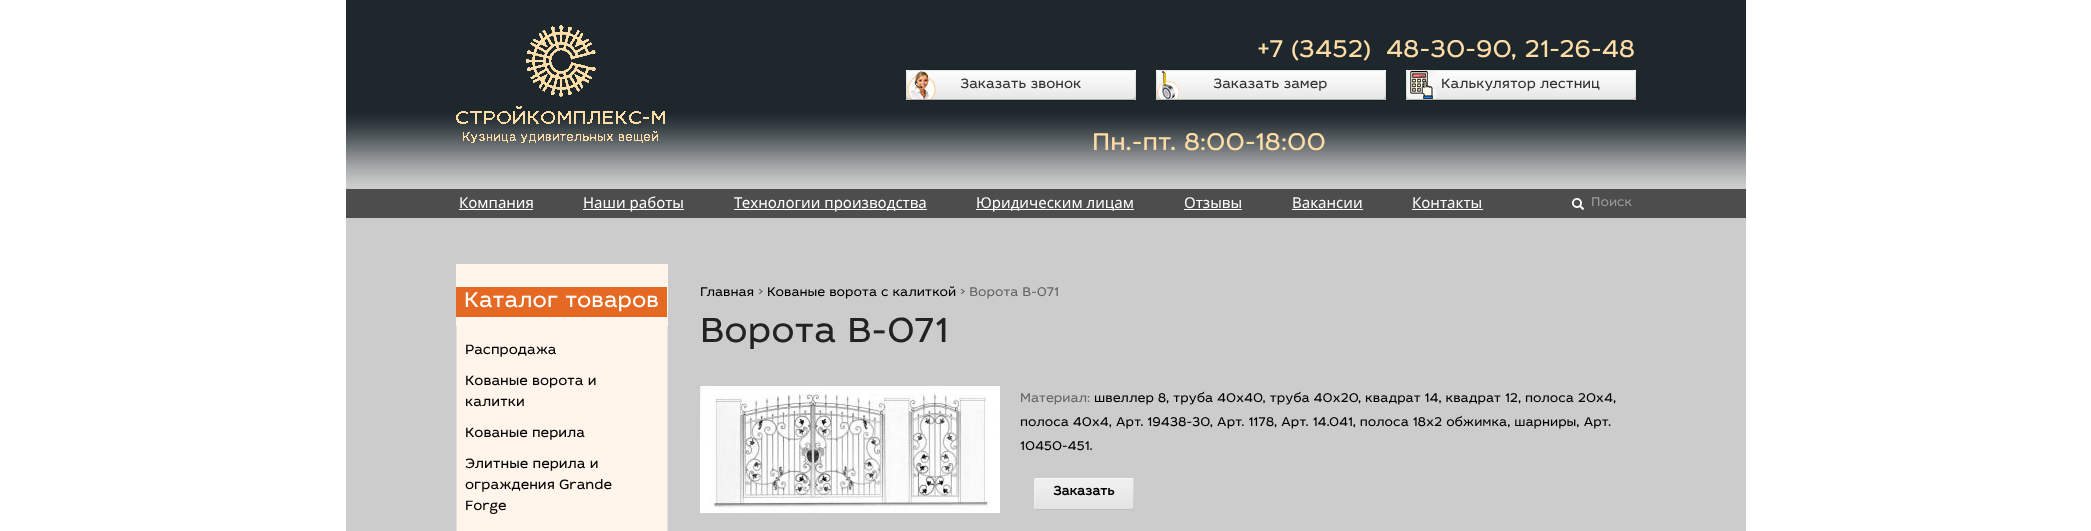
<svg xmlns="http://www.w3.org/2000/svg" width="2091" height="531">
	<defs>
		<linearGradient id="g1" gradientUnits="userSpaceOnUse" x1="1021" y1="70" x2="1021" y2="100"><stop offset="0" stop-color="#FFFFFF" /><stop offset="1" stop-color="#E6E6E6" /></linearGradient>
		<clipPath id="clip1"><path d="M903 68H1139V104H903ZM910 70H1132C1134 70 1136 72 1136 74V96C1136 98 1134 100 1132 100H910C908 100 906 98 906 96V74C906 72 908 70 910 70Z" clip-rule="evenodd" /></clipPath>
		<linearGradient id="g2" gradientUnits="userSpaceOnUse" x1="1271" y1="70" x2="1271" y2="100"><stop offset="0" stop-color="#FFFFFF" /><stop offset="1" stop-color="#E6E6E6" /></linearGradient>
		<clipPath id="clip2"><path d="M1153 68H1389V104H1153ZM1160 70H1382C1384 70 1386 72 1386 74V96C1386 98 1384 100 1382 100H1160C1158 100 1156 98 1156 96V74C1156 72 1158 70 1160 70Z" clip-rule="evenodd" /></clipPath>
		<linearGradient id="g3" gradientUnits="userSpaceOnUse" x1="1521" y1="70" x2="1521" y2="100"><stop offset="0" stop-color="#FFFFFF" /><stop offset="1" stop-color="#E6E6E6" /></linearGradient>
		<clipPath id="clip3"><path d="M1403 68H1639V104H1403ZM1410 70H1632C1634 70 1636 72 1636 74V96C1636 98 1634 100 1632 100H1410C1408 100 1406 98 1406 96V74C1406 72 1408 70 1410 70Z" clip-rule="evenodd" /></clipPath>
	</defs>
	<rect width="100%" height="100%" fill="#FFFFFF" />
	<rect x="346" y="184" width="1400" height="347" fill="#CCCCCC" />
	<image x="346" y="0" width="1400" height="184" href="assets/img1.png" />
	<image x="456" y="25" width="209" height="118" href="assets/img2.png" />
	<rect x="906" y="70" width="230" height="30" fill="url(#g1)" />
	<g clip-path="url(#clip1)">
		<rect x="906" y="71" width="230" height="30" rx="4" fill="#030303" fill-opacity="0.2" filter="blur(0.5px)" />
	</g>
	<image x="907" y="71" width="29" height="28" href="assets/img3.png" />
	<path d="M1134.5 98.5C1134 99 1133 99.5 1132 99.5H910C909 99.5 908 99 907.5 98.5" fill="none" stroke="#B3B3B3" />
	<path d="M907.5 98.5C905 96 906.5 84.5 906.5 81.5C906.5 78.5 905 70.5 910 70.5H1132C1137 70.5 1135.5 78.5 1135.5 81.5C1135.5 84.5 1137 96 1134.5 98.5" fill="none" stroke="#000000" stroke-opacity="0.1" />
	<text x="960" y="88" font-family="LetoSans" font-size="14" fill="#333333">Заказать звонок</text>
	<g font-family="LetoSans" font-size="25" fill="#FEDCA6">
		<text x="1257" y="57" xml:space="preserve">+7 (3452)  48-30-90, 21-26-48</text>
		<text x="1092" y="150">Пн.-пт. 8:00-18:00</text>
	</g>
	<rect x="1156" y="70" width="230" height="30" fill="url(#g2)" />
	<g clip-path="url(#clip2)">
		<rect x="1156" y="71" width="230" height="30" rx="4" fill="#030303" fill-opacity="0.2" filter="blur(0.5px)" />
	</g>
	<image x="1157" y="71" width="22" height="28" href="assets/img4.png" />
	<path d="M1384.5 98.5C1384 99 1383 99.5 1382 99.5H1160C1159 99.5 1158 99 1157.5 98.5" fill="none" stroke="#B3B3B3" />
	<path d="M1157.5 98.5C1155 96 1156.5 84.5 1156.5 81.5C1156.5 78.5 1155 70.5 1160 70.5H1382C1387 70.5 1385.5 78.5 1385.5 81.5C1385.5 84.5 1387 96 1384.5 98.5" fill="none" stroke="#000000" stroke-opacity="0.1" />
	<text x="1213" y="88" font-family="LetoSans" font-size="14" fill="#333333">Заказать замер</text>
	<rect x="1406" y="70" width="230" height="30" fill="url(#g3)" />
	<g clip-path="url(#clip3)">
		<rect x="1406" y="71" width="230" height="30" rx="4" fill="#030303" fill-opacity="0.2" filter="blur(0.5px)" />
	</g>
	<image x="1407" y="71" width="29" height="29" href="assets/img5.png" />
	<path d="M1634.5 98.5C1634 99 1633 99.5 1632 99.5H1410C1409 99.5 1408 99 1407.5 98.5" fill="none" stroke="#B3B3B3" />
	<path d="M1407.5 98.5C1405 96 1406.5 84.5 1406.5 81.5C1406.5 78.5 1405 70.5 1410 70.5H1632C1637 70.5 1635.5 78.5 1635.5 81.5C1635.5 84.5 1637 96 1634.5 98.5" fill="none" stroke="#000000" stroke-opacity="0.1" />
	<text x="1441" y="88" font-family="LetoSans" font-size="14" fill="#333333">Калькулятор лестниц</text>
	<rect x="346" y="189" width="1400" height="29" fill="#4D4D4D" />
	<text x="459" y="208" font-family="Noto Sans" font-size="15" fill="#FFFFFF">Компания</text>
	<rect x="459" y="209" width="74" height="1" fill="#FFFFFF" />
	<rect x="583" y="209" width="101" height="1" fill="#FFFFFF" />
	<text x="583" y="208" font-family="Noto Sans" font-size="15" fill="#FFFFFF">Наши работы</text>
	<rect x="734" y="209" width="193" height="1" fill="#FFFFFF" />
	<text x="734" y="208" font-family="Noto Sans" font-size="15" fill="#FFFFFF">Технологии производства</text>
	<rect x="976" y="209" width="158" height="1" fill="#FFFFFF" />
	<g font-family="Noto Sans" font-size="15" fill="#FFFFFF">
		<text x="976" y="208">Юридическим лицам</text>
		<text x="1184" y="208">Отзывы</text>
	</g>
	<rect x="1184" y="209" width="58" height="1" fill="#FFFFFF" />
	<text x="1292" y="208" font-family="Noto Sans" font-size="15" fill="#FFFFFF">Вакансии</text>
	<rect x="1292" y="209" width="71" height="1" fill="#FFFFFF" />
	<text x="1412" y="208" font-family="Noto Sans" font-size="15" fill="#FFFFFF">Контакты</text>
	<rect x="1412" y="209" width="71" height="1" fill="#FFFFFF" />
	<image x="1572" y="198" width="12" height="12" href="assets/img6.png" />
	<text x="1591" y="206" font-family="LetoSans" font-size="13" fill="#999999">Поиск</text>
	<rect x="456" y="264" width="212" height="267" fill="#FFF5EB" />
	<rect x="456" y="287" width="211" height="30" fill="#E66923" />
	<text x="464" y="307" font-family="LetoSans" font-size="22" fill="#FFFFFF">Каталог товаров</text>
	<rect x="667" y="326" width="1" height="205" fill="#E1E1E1" />
	<rect x="456" y="326" width="1" height="205" fill="#E1E1E1" />
	<g font-family="LetoSans" font-size="14" fill="#000000">
		<text x="465" y="354">Распродажа</text>
		<text x="465" y="385">Кованые ворота и</text>
		<text x="465" y="406">калитки</text>
		<text x="465" y="437">Кованые перила</text>
		<text x="465" y="468">Элитные перила и</text>
		<text x="465" y="489">ограждения Grande</text>
		<text x="465" y="510">Forge</text>
	</g>
	<text x="700" y="296" font-family="LetoSans" font-size="13" fill="#000000">Главная</text>
	<text x="758" y="296" font-family="LetoSans" font-size="13" fill="#666666">&gt;</text>
	<text x="767" y="296" font-family="LetoSans" font-size="13" fill="#000000">Кованые ворота с калиткой</text>
	<text x="960" y="296" font-family="LetoSans" font-size="13" fill="#666666">&gt; Ворота В-071</text>
	<text x="700" y="342" font-family="LetoSans" font-size="36" fill="#222222">Ворота В-071</text>
	<image x="700" y="386" width="300" height="127" href="assets/img7.png" />
	<text x="1020" y="402" font-family="LetoSans" font-size="13" fill="#666666">Материал:</text>
	<g font-family="LetoSans" font-size="13" fill="#000000">
		<text x="1094" y="402">швеллер 8, труба 40х40, труба 40х20, квадрат 14, квадрат 12, полоса 20х4,</text>
		<text x="1020" y="426">полоса 40х4, Арт. 19438-30, Арт. 1178, Арт. 14.041, полоса 18х2 обжимка, шарниры, Арт.</text>
		<text x="1020" y="450">10450-451.</text>
	</g>
	<image x="1034" y="478" width="100" height="32" href="assets/img8.png" />
	<text x="1053" y="495" font-family="LetoSans" font-size="13" font-weight="700" fill="#000000">Заказать</text>
</svg>
